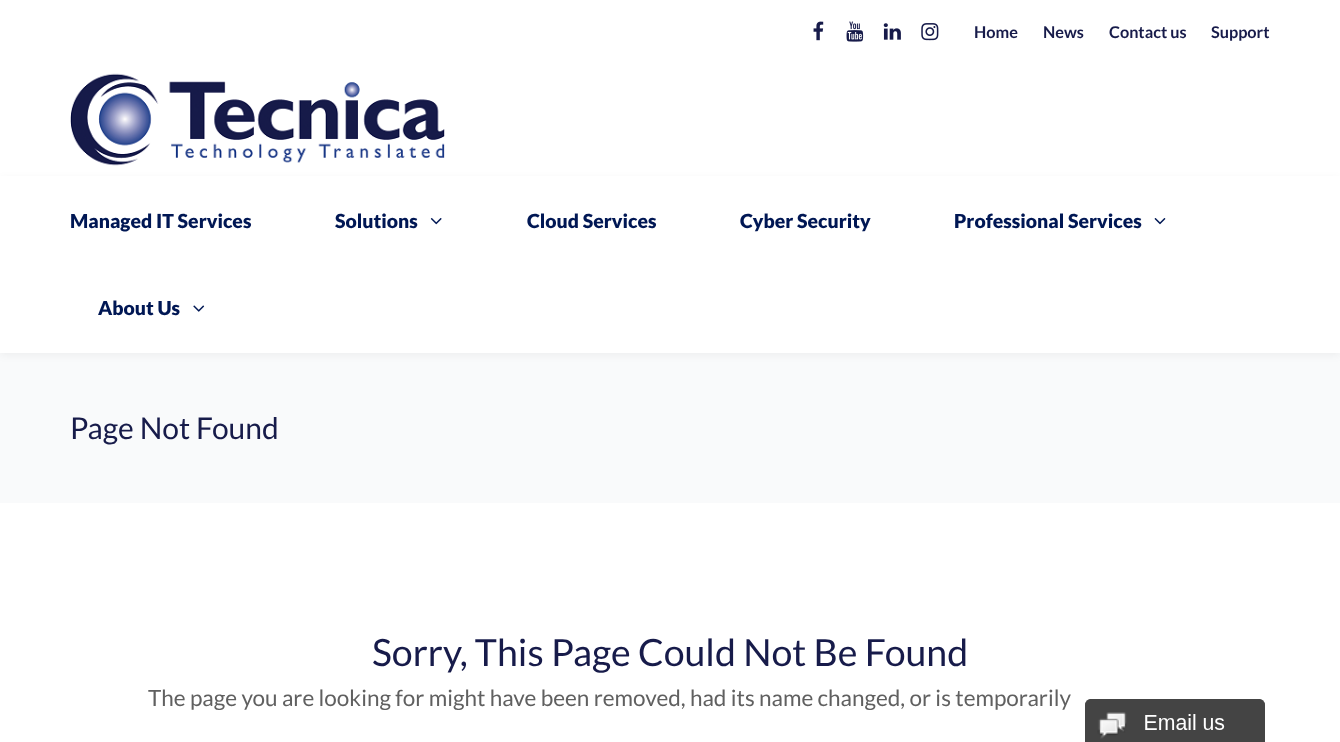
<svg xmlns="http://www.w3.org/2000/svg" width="1340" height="742">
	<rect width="100%" height="100%" fill="#FFFFFF" />
	<image x="813" y="21" width="11" height="20" href="assets/img1.png" />
	<image x="846" y="21" width="18" height="21" href="assets/img2.png" />
	<image x="883" y="23" width="18" height="17" href="assets/img3.png" />
	<image x="921" y="23" width="18" height="18" href="assets/img4.png" />
	<g font-family="Lato" font-size="16.25" font-weight="700" fill="#171B4A">
		<text x="974" y="38">Home</text>
		<text x="1043" y="38">News</text>
		<text x="1109" y="38">Contact us</text>
		<text x="1211" y="38">Support</text>
	</g>
	<image x="70" y="73" width="375" height="93" href="assets/img5.png" />
	<rect x="0" y="353" width="1340" height="150" fill="#F9FAFB" />
	<rect x="0" y="179" width="1340" height="176" fill="#000000" fill-opacity="0.05" filter="blur(4px)" />
	<rect x="0" y="176" width="1340" height="177" fill="#FFFFFF" />
	<g font-family="Lato" font-size="19.4" font-weight="900" fill="#001754">
		<text x="70" y="228">Managed IT Services</text>
		<text x="335" y="228">Solutions</text>
	</g>
	<image x="430" y="218" width="12" height="7" href="assets/img6.png" />
	<g font-family="Lato" font-size="19.4" font-weight="900" fill="#001754">
		<text x="527" y="228">Cloud Services</text>
		<text x="740" y="228">Cyber Security</text>
		<text x="954" y="228">Professional Services</text>
	</g>
	<image x="1154" y="218" width="12" height="7" href="assets/img7.png" />
	<text x="98" y="315" font-family="Lato" font-size="19.4" font-weight="900" fill="#001754">About Us</text>
	<image x="193" y="305" width="12" height="7" href="assets/img8.png" />
	<text x="70" y="439" font-family="Lato" font-size="30" fill="#171B4A">Page Not Found</text>
	<text x="372" y="666" font-family="Lato" font-size="37.5" fill="#171B4A">Sorry, This Page Could Not Be Found</text>
	<text x="148" y="706" font-family="Lato" font-size="22.5" fill="#606060">The page you are looking for might have been removed, had its name changed, or is temporarily</text>
	<image x="1085" y="699" width="180" height="43" href="assets/img9.png" />
</svg>
